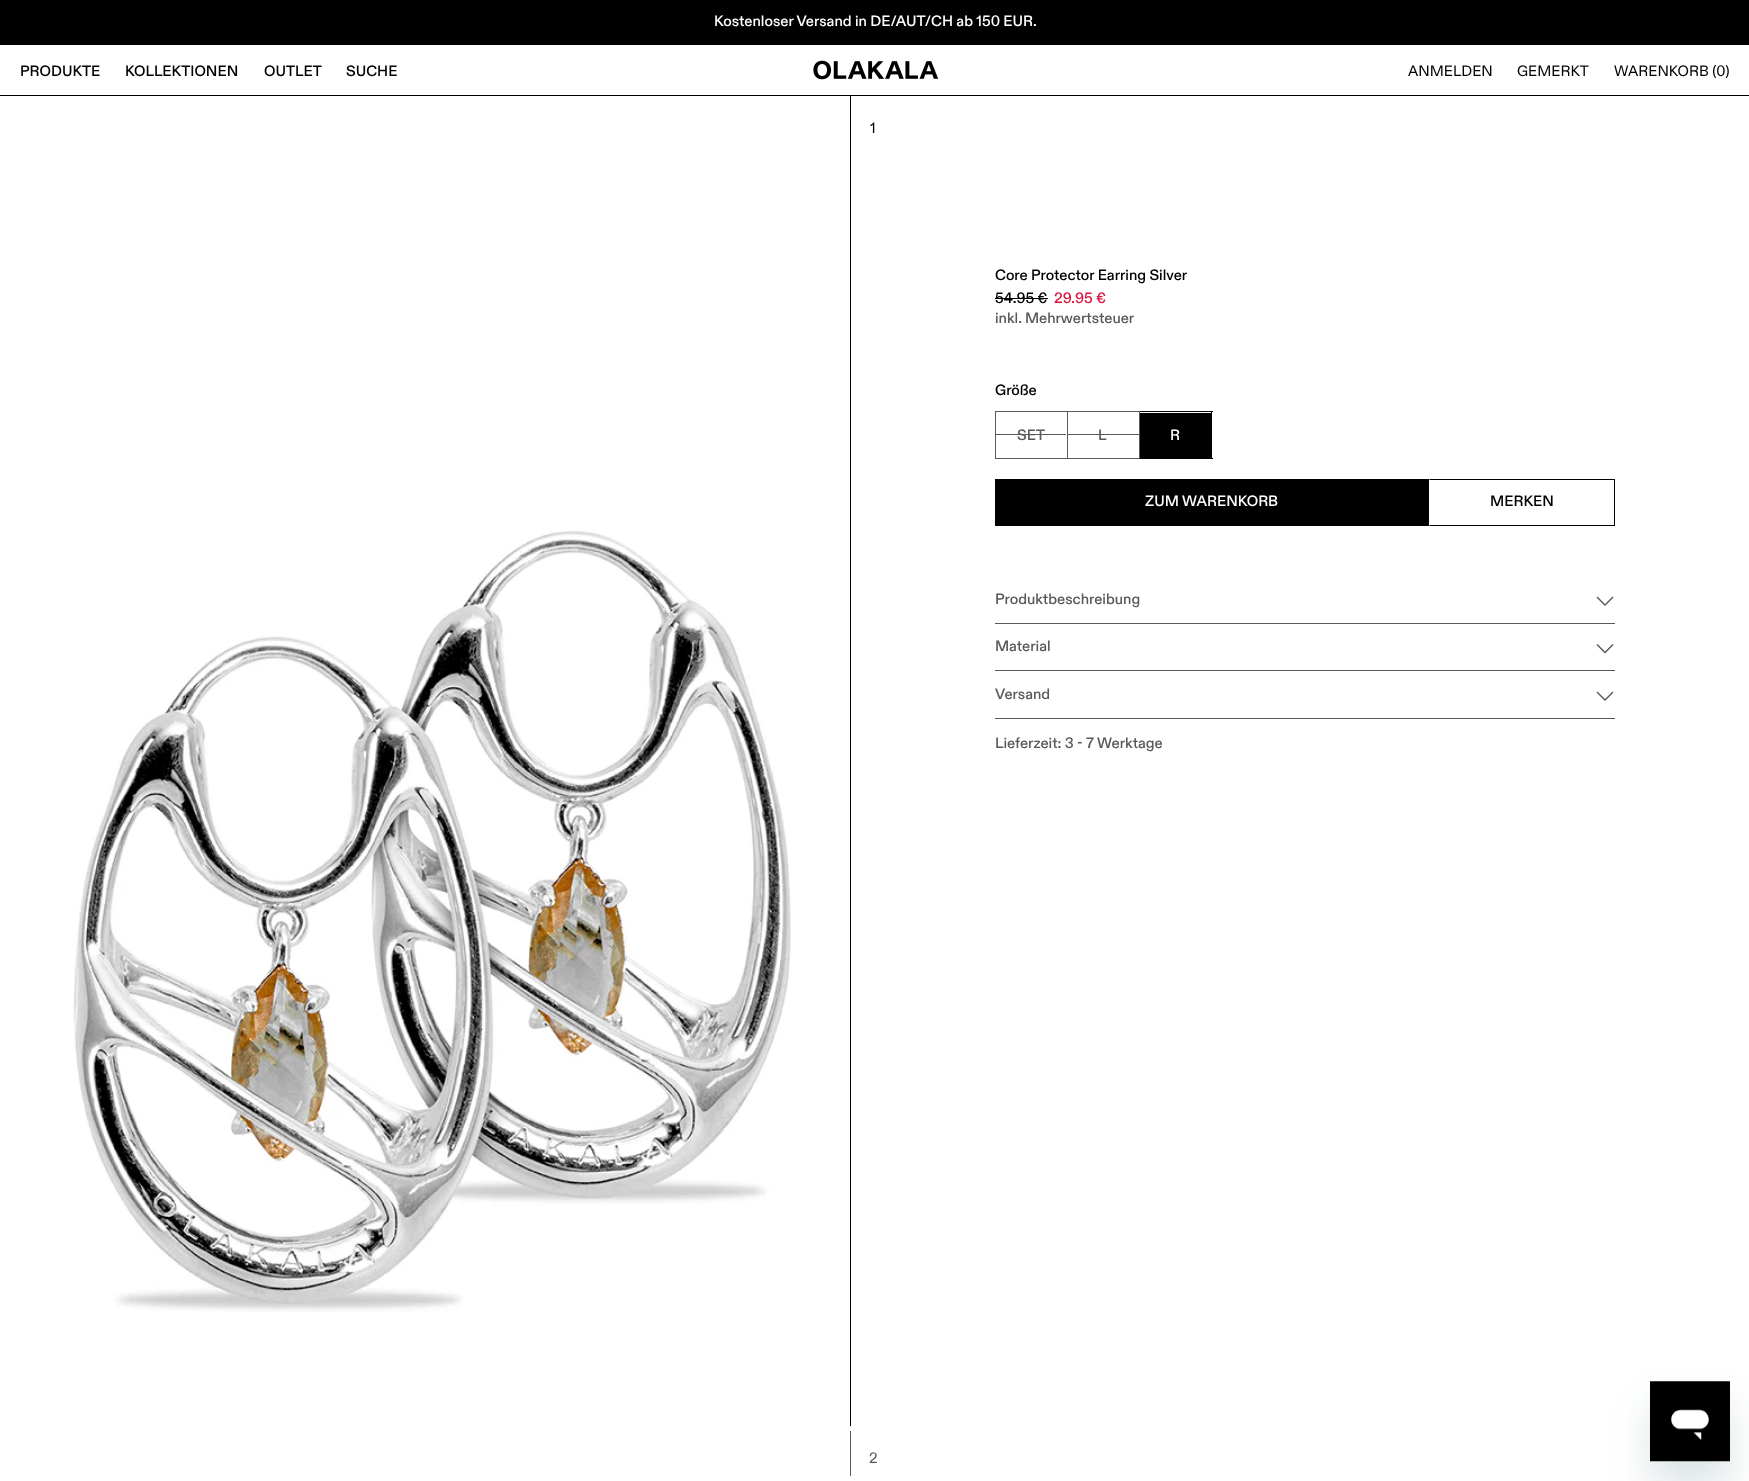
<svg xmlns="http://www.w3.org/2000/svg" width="1749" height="1481">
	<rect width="100%" height="100%" fill="#FFFFFF" />
	<rect x="0" y="0" width="1749" height="45" fill="#000000" />
	<text x="714" y="26" font-family="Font" font-size="15" font-weight="500" fill="#FFFFFF">Kostenloser Versand in DE/AUT/CH ab 150 EUR.</text>
	<rect x="0" y="95" width="1749" height="1" fill="#000000" />
	<g font-family="Font" font-size="15" font-weight="500" fill="#000000">
		<text x="20" y="76">PRODUKTE</text>
		<text x="125" y="76">KOLLEKTIONEN</text>
		<text x="264" y="76">OUTLET</text>
		<text x="346" y="76">SUCHE</text>
	</g>
	<image x="813" y="60" width="126" height="20" href="assets/img1.png" />
	<g font-family="Font" font-size="15" fill="#000000">
		<text x="1408" y="76">ANMELDEN</text>
		<text x="1517" y="76">GEMERKT</text>
		<text x="1614" y="76">WARENKORB (0)</text>
	</g>
	<image x="73" y="530" width="718" height="782" href="assets/img2.png" />
	<rect x="850" y="96" width="1" height="1330" fill="#000000" />
	<text x="870" y="133" font-family="Font" font-size="15" fill="#000000">1</text>
	<rect x="850" y="1431" width="1" height="45" fill="#595959" />
	<text x="869" y="1463" font-family="Font" font-size="15" fill="#595959">2</text>
	<g font-family="Font" font-size="15" font-weight="500" fill="#000000">
		<text x="995" y="280">Core Protector Earring Silver</text>
		<text x="995" y="303">54.95 €</text>
	</g>
	<rect x="995" y="298" width="53" height="1" fill="#000000" />
	<text x="1054" y="303" font-family="Font" font-size="15" font-weight="500" fill="#DC143C">29.95 €</text>
	<text x="995" y="323" font-family="Font" font-size="15" font-weight="500" fill="#595959">inkl. Mehrwertsteuer</text>
	<text x="995" y="395" font-family="Font" font-size="15" font-weight="500" fill="#000000">Größe</text>
	<rect x="995.5" y="411.5" width="72" height="47" fill="none" stroke="#595959" />
	<text x="1017" y="440" font-family="Font" font-size="15" font-weight="500" fill="#595959">SET</text>
	<rect x="996" y="434" width="70" height="1" fill="#595959" />
	<rect x="1068" y="411" width="72" height="1" fill="#595959" />
	<rect x="1139" y="411" width="1" height="48" fill="#595959" />
	<rect x="1068" y="458" width="72" height="1" fill="#595959" />
	<text x="1098" y="440" font-family="Font" font-size="15" font-weight="500" fill="#595959">L</text>
	<rect x="1068" y="434" width="71" height="1" fill="#595959" />
	<rect x="1140" y="413" width="71" height="45" fill="#000000" />
	<rect x="1140" y="411" width="73" height="1" fill="#000000" />
	<rect x="1211" y="411" width="1" height="48" fill="#000000" />
	<rect x="1140" y="458" width="73" height="1" fill="#000000" />
	<text x="1170" y="440" font-family="Font" font-size="15" font-weight="500" fill="#FFFFFF">R</text>
	<rect x="995" y="479" width="434" height="47" fill="#000000" />
	<text x="1145" y="506" font-family="Font" font-size="15" font-weight="500" fill="#FFFFFF">ZUM WARENKORB</text>
	<path d="M1429 479H1615L1614 480H1430Z" fill="#000000" />
	<rect x="1614" y="479" width="1" height="47" fill="#000000" />
	<path d="M1615 526H1429L1430 525H1614Z" fill="#000000" />
	<text x="1490" y="506" font-family="Font" font-size="15" font-weight="500" fill="#000000">MERKEN</text>
	<rect x="995" y="623" width="620" height="1" fill="#595959" />
	<text x="995" y="604" font-family="Font" font-size="15" font-weight="500" fill="#595959">Produktbeschreibung</text>
	<path d="M1597.5 596.5L1596.5 597.5L1605 606L1613.5 597.5L1612.5 596.5L1605 604ZM1597.5 644L1596.5 645L1605 653.5L1613.5 645L1612.5 644L1605 651.5Z" fill="#595959" />
	<rect x="995" y="670" width="620" height="1" fill="#595959" />
	<text x="995" y="651" font-family="Font" font-size="15" font-weight="500" fill="#595959">Material</text>
	<rect x="995" y="718" width="620" height="1" fill="#595959" />
	<text x="995" y="699" font-family="Font" font-size="15" font-weight="500" fill="#595959">Versand</text>
	<path d="M1597.5 691.5L1596.5 692.5L1605 701L1613.5 692.5L1612.5 691.5L1605 699Z" fill="#595959" />
	<text x="995" y="748" font-family="Font" font-size="15" font-weight="500" fill="#595959">Lieferzeit: 3 - 7 Werktage</text>
	<rect x="1650" y="1406" width="80" height="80" fill="#17494D" fill-opacity="0.15" filter="blur(19px)" />
	<image x="1650" y="1381" width="80" height="81" href="assets/img3.png" />
</svg>
